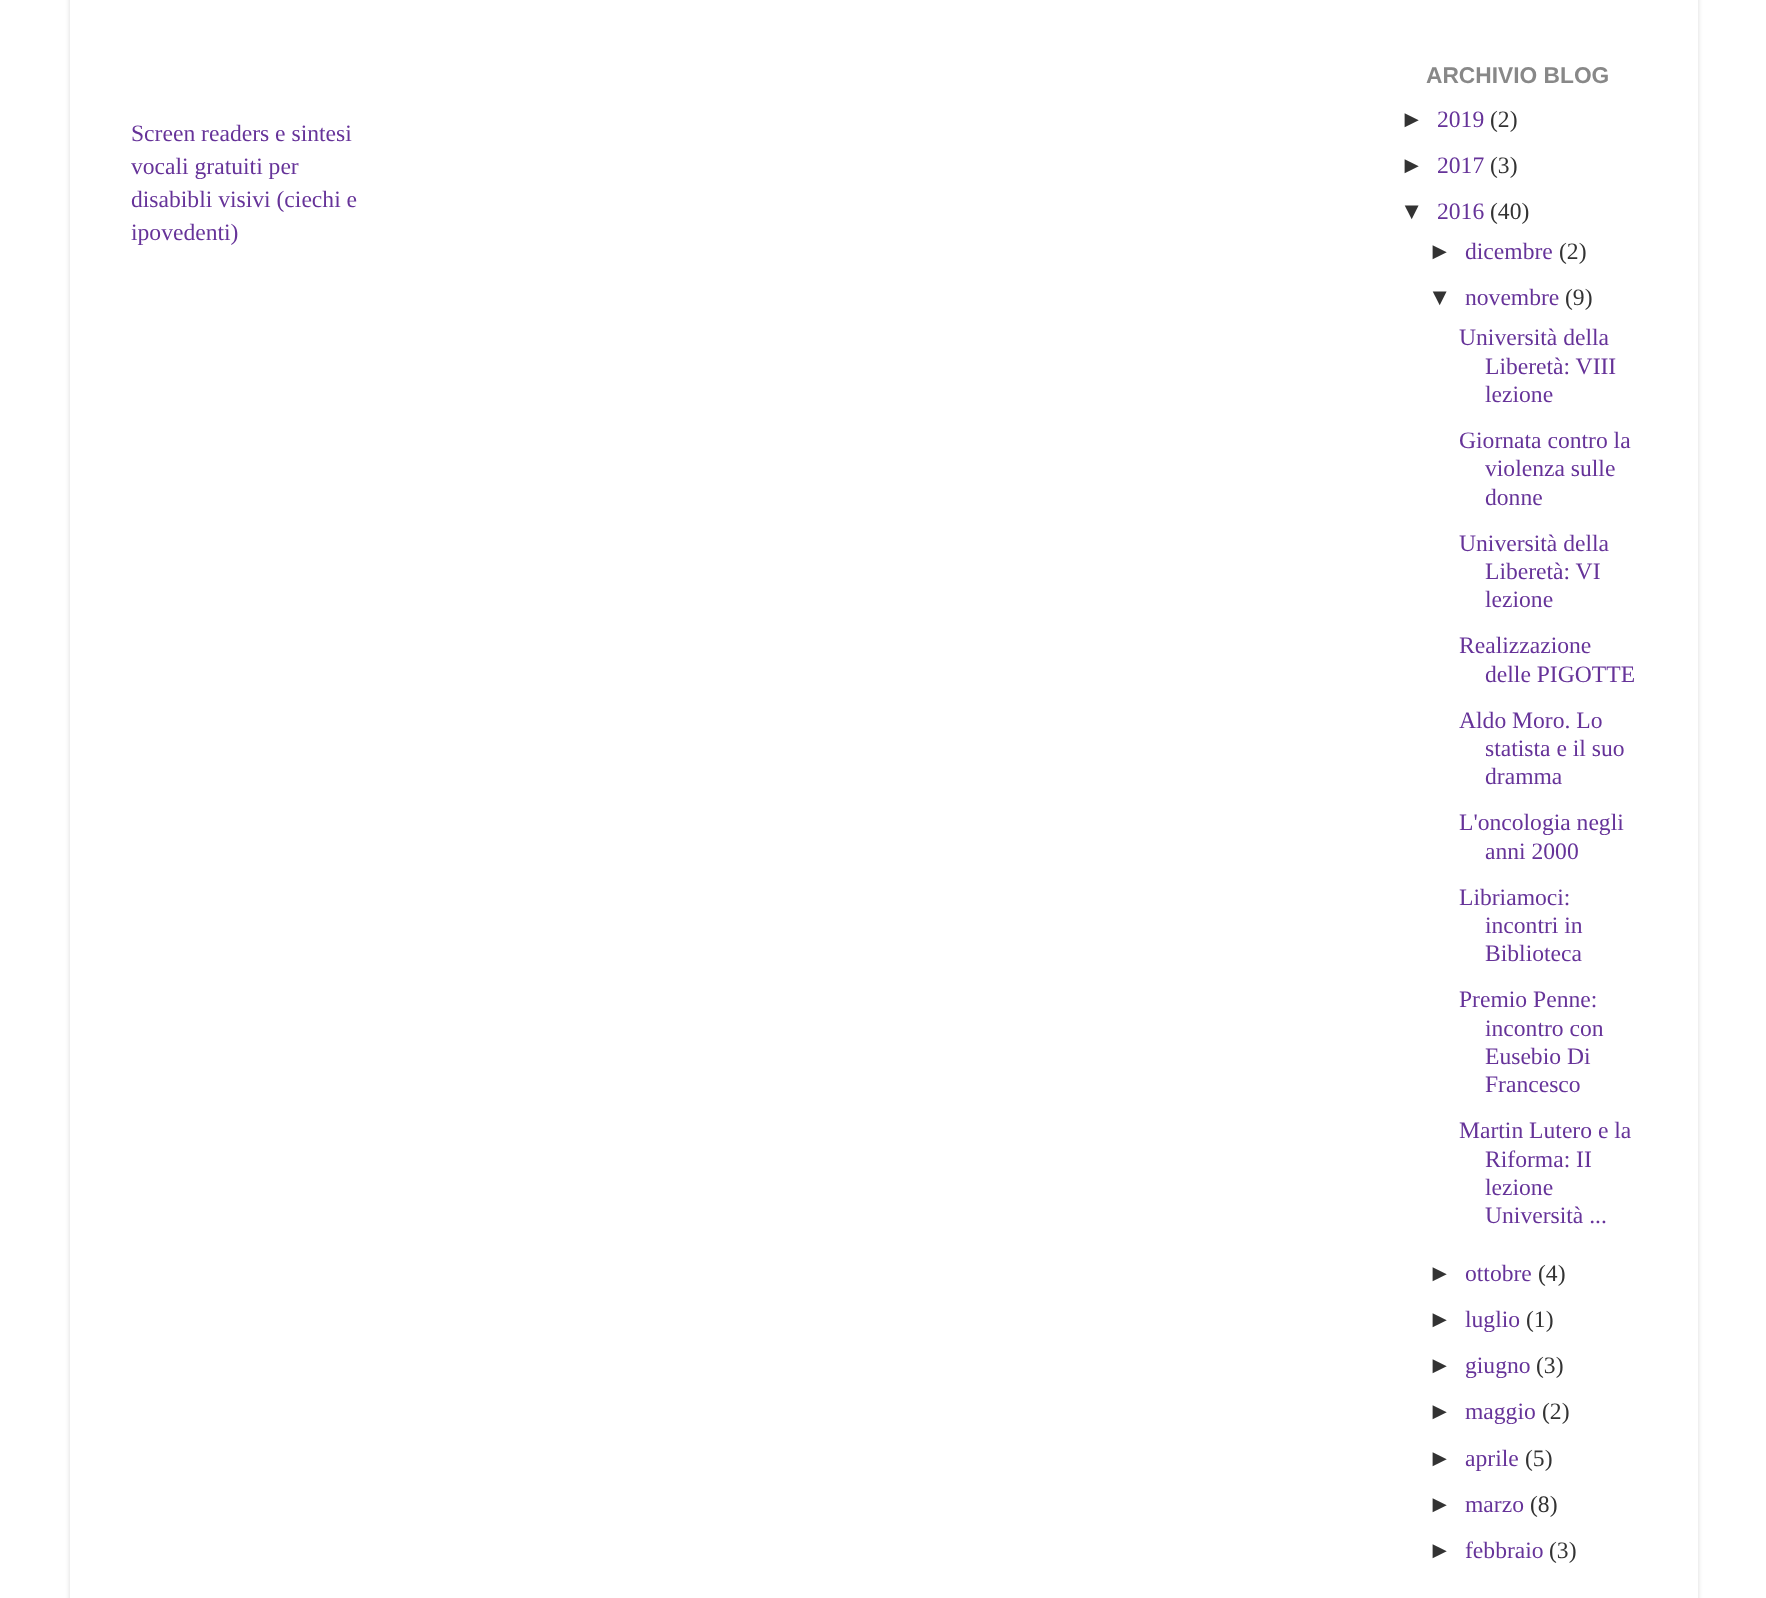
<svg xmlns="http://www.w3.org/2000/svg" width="1766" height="1598">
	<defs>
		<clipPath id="clip1"><path d="M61 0H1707V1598H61ZM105-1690H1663C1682.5-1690 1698-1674.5 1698-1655V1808H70V-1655C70-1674.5 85.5-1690 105-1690Z" clip-rule="evenodd" /></clipPath>
	</defs>
	<rect width="100%" height="100%" fill="#FFFFFF" />
	<g clip-path="url(#clip1)">
		<rect x="70" y="-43" width="1628" height="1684" rx="35" fill="#000000" fill-opacity="0.15" filter="blur(2.5px)" />
	</g>
	<g font-family="Liberation Serif" font-size="23.6" fill="#663399">
		<text x="131" y="141">Screen readers e sintesi</text>
		<text x="131" y="174">vocali gratuiti per</text>
		<text x="131" y="207">disabibli visivi (ciechi e</text>
		<text x="131" y="240">ipovedenti)</text>
	</g>
	<text x="1426" y="83" font-family="Liberation Sans" font-size="22.75" font-weight="700" fill="#888888">ARCHIVIO BLOG</text>
	<text x="1400" y="127" font-family="Liberation Sans" font-size="23.6" fill="#333333">►</text>
	<text x="1437" y="127" font-family="Liberation Serif" font-size="23.6" fill="#663399">2019</text>
	<text x="1490" y="127" font-family="Liberation Serif" font-size="23.6" fill="#333333">(2)</text>
	<text x="1400" y="173" font-family="Liberation Sans" font-size="23.6" fill="#333333">►</text>
	<text x="1437" y="173" font-family="Liberation Serif" font-size="23.6" fill="#663399">2017</text>
	<text x="1490" y="173" font-family="Liberation Serif" font-size="23.6" fill="#333333">(3)</text>
	<text x="1400" y="219" font-family="Liberation Sans" font-size="23.6" fill="#333333">▼</text>
	<text x="1437" y="219" font-family="Liberation Serif" font-size="23.6" fill="#663399">2016</text>
	<text x="1490" y="219" font-family="Liberation Serif" font-size="23.6" fill="#333333">(40)</text>
	<text x="1428" y="259" font-family="Liberation Sans" font-size="23.6" fill="#333333">►</text>
	<text x="1465" y="259" font-family="Liberation Serif" font-size="23.6" fill="#663399">dicembre</text>
	<text x="1559" y="259" font-family="Liberation Serif" font-size="23.6" fill="#333333">(2)</text>
	<text x="1428" y="305" font-family="Liberation Sans" font-size="23.6" fill="#333333">▼</text>
	<text x="1465" y="305" font-family="Liberation Serif" font-size="23.6" fill="#663399">novembre</text>
	<text x="1565" y="305" font-family="Liberation Serif" font-size="23.6" fill="#333333">(9)</text>
	<g font-family="Liberation Serif" font-size="23.6" fill="#663399">
		<text x="1459" y="345">Università della</text>
		<text x="1485" y="374">Liberetà: VIII</text>
		<text x="1485" y="402">lezione</text>
		<text x="1459" y="448">Giornata contro la</text>
		<text x="1485" y="476">violenza sulle</text>
		<text x="1485" y="505">donne</text>
		<text x="1459" y="551">Università della</text>
		<text x="1485" y="579">Liberetà: VI</text>
		<text x="1485" y="607">lezione</text>
		<text x="1459" y="653">Realizzazione</text>
		<text x="1485" y="682">delle PIGOTTE</text>
		<text x="1459" y="728">Aldo Moro. Lo</text>
		<text x="1485" y="756">statista e il suo</text>
		<text x="1485" y="784">dramma</text>
		<text x="1459" y="830">L'oncologia negli</text>
		<text x="1485" y="859">anni 2000</text>
		<text x="1459" y="905">Libriamoci:</text>
		<text x="1485" y="933">incontri in</text>
		<text x="1485" y="961">Biblioteca</text>
		<text x="1459" y="1007">Premio Penne:</text>
		<text x="1485" y="1036">incontro con</text>
		<text x="1485" y="1064">Eusebio Di</text>
		<text x="1485" y="1092">Francesco</text>
		<text x="1459" y="1138">Martin Lutero e la</text>
		<text x="1485" y="1167">Riforma: II</text>
		<text x="1485" y="1195">lezione</text>
		<text x="1485" y="1223">Università ...</text>
	</g>
	<text x="1428" y="1281" font-family="Liberation Sans" font-size="23.6" fill="#333333">►</text>
	<text x="1465" y="1281" font-family="Liberation Serif" font-size="23.6" fill="#663399">ottobre</text>
	<text x="1538" y="1281" font-family="Liberation Serif" font-size="23.6" fill="#333333">(4)</text>
	<text x="1428" y="1327" font-family="Liberation Sans" font-size="23.6" fill="#333333">►</text>
	<text x="1465" y="1327" font-family="Liberation Serif" font-size="23.6" fill="#663399">luglio</text>
	<text x="1526" y="1327" font-family="Liberation Serif" font-size="23.6" fill="#333333">(1)</text>
	<text x="1428" y="1373" font-family="Liberation Sans" font-size="23.6" fill="#333333">►</text>
	<text x="1465" y="1373" font-family="Liberation Serif" font-size="23.6" fill="#663399">giugno</text>
	<text x="1536" y="1373" font-family="Liberation Serif" font-size="23.6" fill="#333333">(3)</text>
	<text x="1428" y="1419" font-family="Liberation Sans" font-size="23.6" fill="#333333">►</text>
	<text x="1465" y="1419" font-family="Liberation Serif" font-size="23.6" fill="#663399">maggio</text>
	<text x="1542" y="1419" font-family="Liberation Serif" font-size="23.6" fill="#333333">(2)</text>
	<text x="1428" y="1466" font-family="Liberation Sans" font-size="23.6" fill="#333333">►</text>
	<text x="1465" y="1466" font-family="Liberation Serif" font-size="23.6" fill="#663399">aprile</text>
	<text x="1525" y="1466" font-family="Liberation Serif" font-size="23.6" fill="#333333">(5)</text>
	<text x="1428" y="1512" font-family="Liberation Sans" font-size="23.6" fill="#333333">►</text>
	<text x="1465" y="1512" font-family="Liberation Serif" font-size="23.6" fill="#663399">marzo</text>
	<text x="1530" y="1512" font-family="Liberation Serif" font-size="23.6" fill="#333333">(8)</text>
	<text x="1428" y="1558" font-family="Liberation Sans" font-size="23.6" fill="#333333">►</text>
	<text x="1465" y="1558" font-family="Liberation Serif" font-size="23.6" fill="#663399">febbraio</text>
	<text x="1549" y="1558" font-family="Liberation Serif" font-size="23.6" fill="#333333">(3)</text>
</svg>
